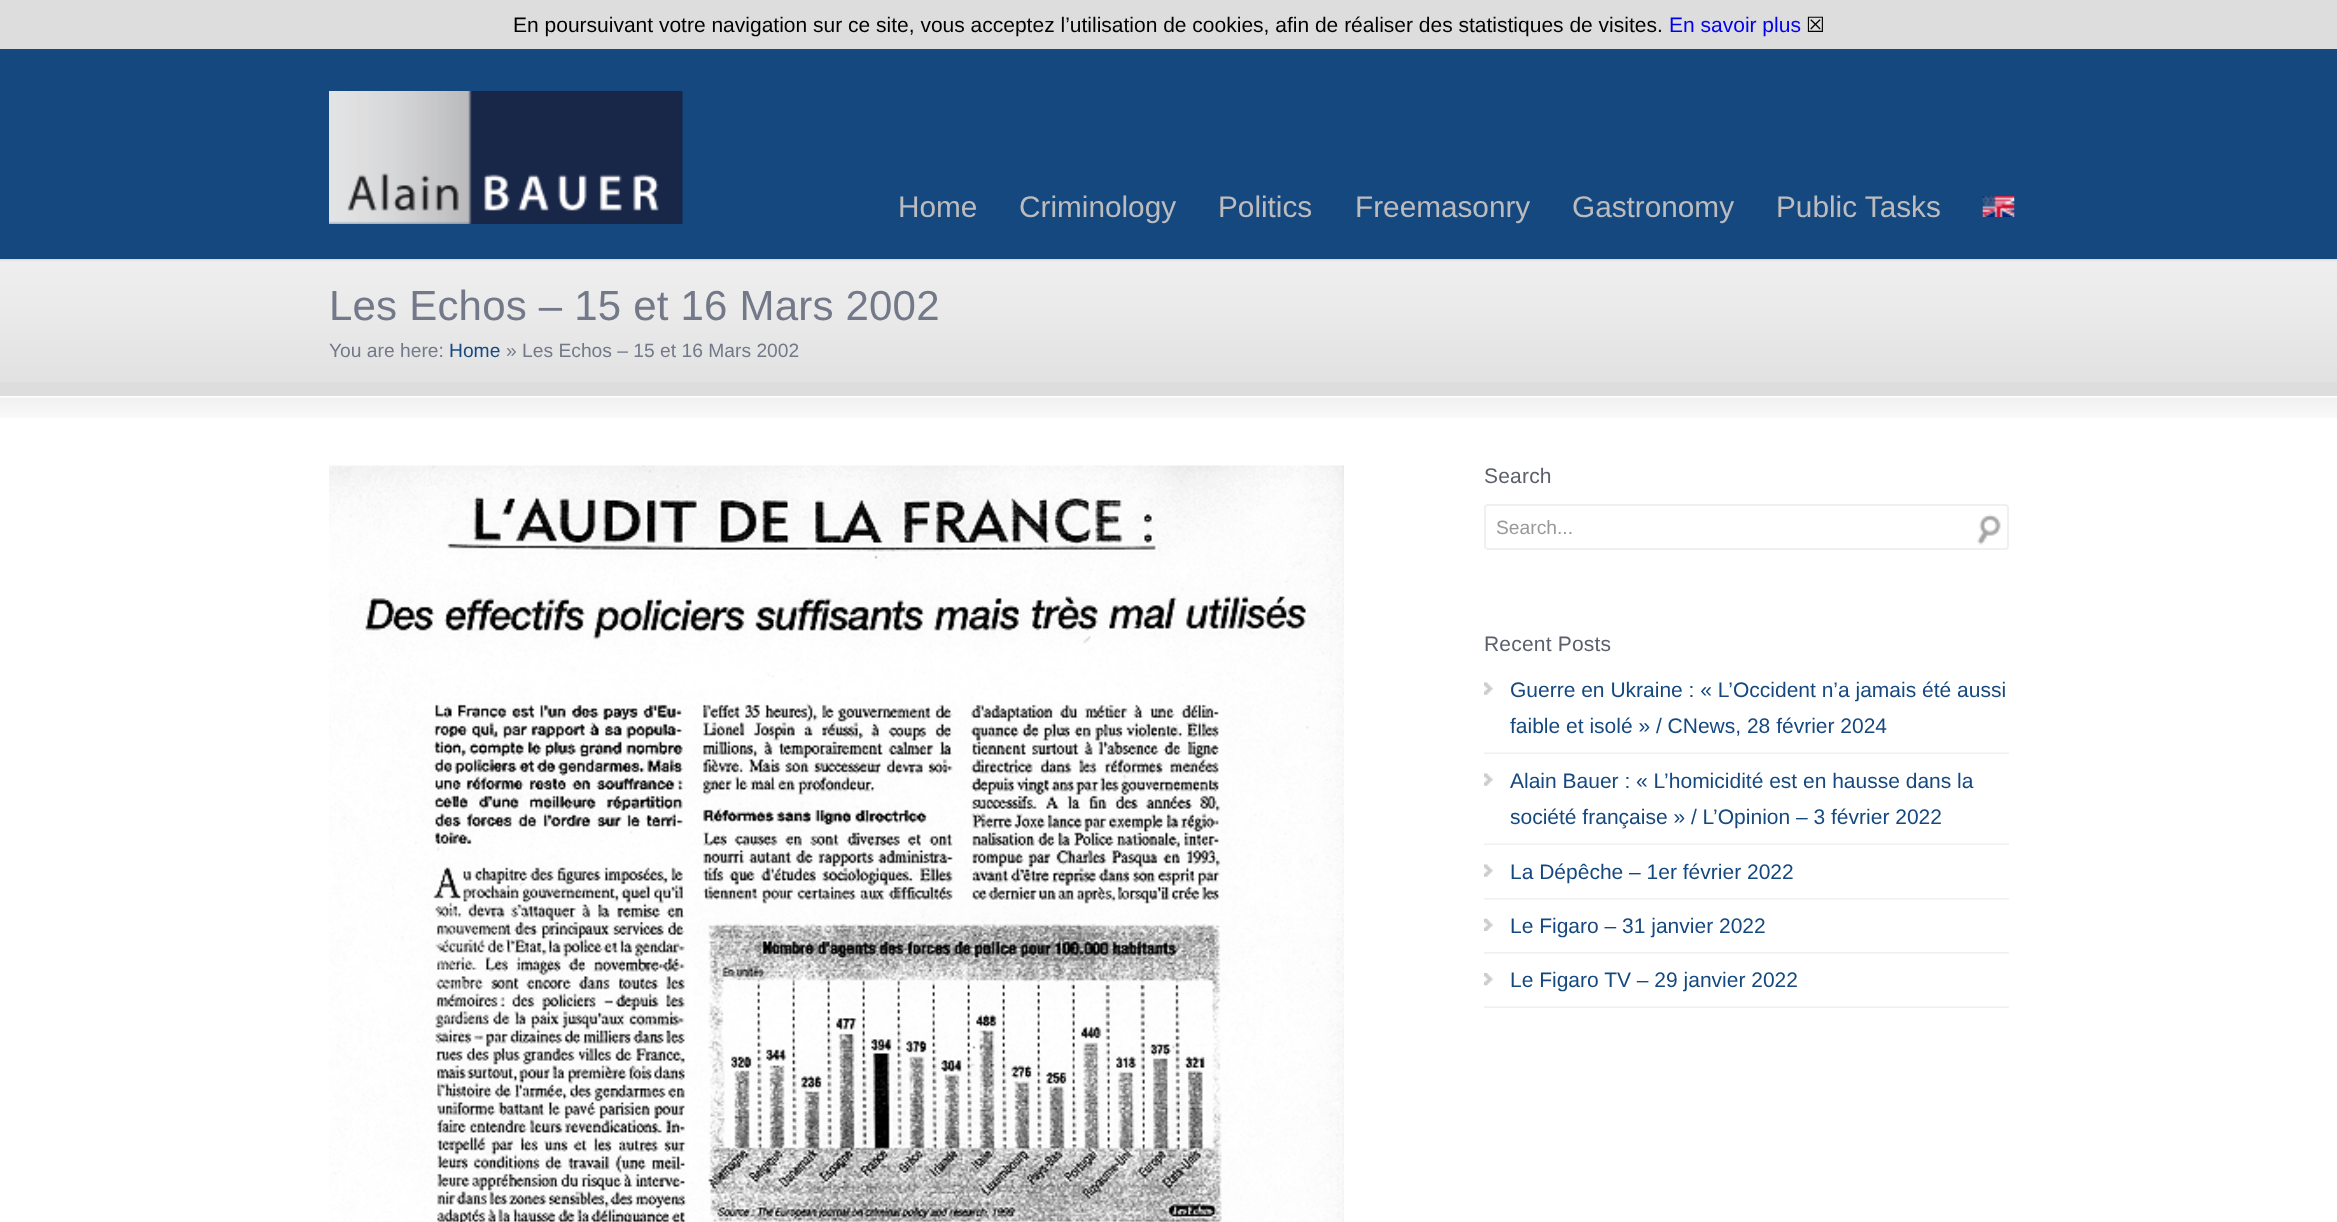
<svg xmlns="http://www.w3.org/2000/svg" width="2337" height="1222">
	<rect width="100%" height="100%" fill="#FFFFFF" />
	<rect x="0" y="0" width="2337" height="49" fill="#DDDDDD" />
	<text x="513" y="32" font-family="Liberation Sans" font-size="21" fill="#000000">En poursuivant votre navigation sur ce site, vous acceptez l’utilisation de cookies, afin de réaliser des statistiques de visites.</text>
	<text x="1669" y="32" font-family="Liberation Sans" font-size="21" fill="#0000EE">En savoir plus</text>
	<text x="1806" y="32" font-family="DejaVu Sans" font-size="21" fill="#000000">☒</text>
	<rect x="0" y="49" width="2337" height="210" fill="#15487F" />
	<image x="329" y="91" width="354" height="133" href="assets/img1.png" />
	<g font-family="Liberation Sans" font-size="29.75" fill="#BCBCBE">
		<text x="898" y="217">Home</text>
		<text x="1019" y="217">Criminology</text>
		<text x="1218" y="217">Politics</text>
		<text x="1355" y="217">Freemasonry</text>
		<text x="1572" y="217">Gastronomy</text>
		<text x="1776" y="217">Public Tasks</text>
	</g>
	<image x="1982" y="196" width="33" height="21" href="assets/img2.png" />
	<rect x="0" y="259" width="2337" height="137" fill="#DDDDDD" />
	<image x="0" y="260" width="2337" height="122" href="assets/img3.png" />
	<text x="329" y="320" font-family="Liberation Sans" font-size="42" letter-spacing="0.2" fill="#737988">Les Echos – 15 et 16 Mars 2002</text>
	<text x="329" y="357" font-family="Liberation Sans" font-size="19.25" fill="#737988">You are here:</text>
	<text x="449" y="357" font-family="Liberation Sans" font-size="19.25" fill="#15487F">Home</text>
	<text x="506" y="357" font-family="Liberation Sans" font-size="19.25" fill="#737988">» Les Echos – 15 et 16 Mars 2002</text>
	<image x="0" y="397" width="2337" height="21" href="assets/img4.png" />
	<image x="329" y="465" width="1015" height="757" href="assets/img5.png" />
	<text x="1484" y="483" font-family="Liberation Sans" font-size="21" letter-spacing="0.2" fill="#5C606B">Search</text>
	<rect x="1485" y="505" width="523" height="44" rx="3" fill="none" stroke="#F0F0F0" stroke-width="2" />
	<text x="1496" y="534" font-family="Liberation Sans" font-size="19.25" fill="#999999">Search...</text>
	<image x="1977" y="514" width="24" height="31" href="assets/img6.png" />
	<text x="1484" y="651" font-family="Liberation Sans" font-size="21" letter-spacing="0.2" fill="#5C606B">Recent Posts</text>
	<image x="1484" y="682" width="9" height="13" href="assets/img7.png" />
	<image x="1484" y="752" width="525" height="2" href="assets/img8.png" />
	<g font-family="Liberation Sans" font-size="21" fill="#15487F">
		<text x="1510" y="697">Guerre en Ukraine : « L’Occident n’a jamais été aussi</text>
		<text x="1510" y="733">faible et isolé » / CNews, 28 février 2024</text>
	</g>
	<image x="1484" y="773" width="9" height="13" href="assets/img7.png" />
	<image x="1484" y="843" width="525" height="2" href="assets/img8.png" />
	<g font-family="Liberation Sans" font-size="21" fill="#15487F">
		<text x="1510" y="788">Alain Bauer : « L’homicidité est en hausse dans la</text>
		<text x="1510" y="824">société française » / L’Opinion – 3 février 2022</text>
	</g>
	<image x="1484" y="864" width="9" height="13" href="assets/img7.png" />
	<image x="1484" y="898" width="525" height="2" href="assets/img9.png" />
	<text x="1510" y="879" font-family="Liberation Sans" font-size="21" fill="#15487F">La Dépêche – 1er février 2022</text>
	<image x="1484" y="918" width="9" height="13" href="assets/img10.png" />
	<image x="1484" y="952" width="525" height="2" href="assets/img11.png" />
	<text x="1510" y="933" font-family="Liberation Sans" font-size="21" fill="#15487F">Le Figaro – 31 janvier 2022</text>
	<image x="1484" y="973" width="9" height="13" href="assets/img12.png" />
	<image x="1484" y="1006" width="525" height="2" href="assets/img13.png" />
	<text x="1510" y="987" font-family="Liberation Sans" font-size="21" fill="#15487F">Le Figaro TV – 29 janvier 2022</text>
</svg>
